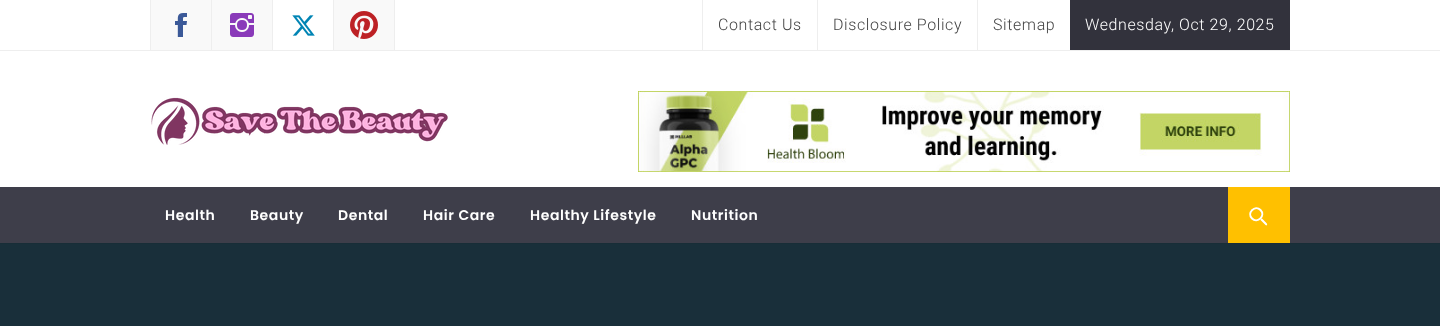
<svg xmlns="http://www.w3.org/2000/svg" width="1440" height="326">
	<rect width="100%" height="100%" fill="#FFFFFF" />
	<rect x="0" y="50" width="1440" height="1" fill="#EEEEEE" />
	<rect x="211" y="0" width="1" height="50" fill="#EEEEEE" />
	<rect x="150" y="0" width="1" height="50" fill="#EEEEEE" />
	<rect x="151" y="0" width="60" height="50" fill="#F9F9F9" />
	<image x="175" y="13" width="12" height="24" href="assets/img1.png" />
	<rect x="272" y="0" width="1" height="50" fill="#EEEEEE" />
	<rect x="212" y="0" width="60" height="50" fill="#F9F9F9" />
	<image x="230" y="13" width="24" height="24" href="assets/img2.png" />
	<rect x="333" y="0" width="1" height="50" fill="#EEEEEE" />
	<image x="292" y="15" width="23" height="21" href="assets/img3.png" />
	<rect x="394" y="0" width="1" height="50" fill="#EEEEEE" />
	<rect x="334" y="0" width="60" height="50" fill="#F9F9F9" />
	<image x="350" y="11" width="28" height="28" href="assets/img4.png" />
	<rect x="817" y="0" width="1" height="50" fill="#EEEEEE" />
	<rect x="702" y="0" width="1" height="50" fill="#EEEEEE" />
	<text x="718" y="30" font-family="Roboto" font-size="16" font-weight="300" letter-spacing="0.6" fill="#434343">Contact Us</text>
	<rect x="977" y="0" width="1" height="50" fill="#EEEEEE" />
	<g font-family="Roboto" font-size="16" font-weight="300" letter-spacing="0.6" fill="#434343">
		<text x="833" y="30">Disclosure Policy</text>
		<text x="993" y="30">Sitemap</text>
	</g>
	<rect x="1070" y="0" width="220" height="50" fill="#32323C" />
	<text x="1085" y="30" font-family="Roboto" font-size="16" font-weight="300" letter-spacing="0.6" fill="#FFFFFF">Wednesday, Oct 29, 2025</text>
	<image x="151" y="97" width="297" height="48" href="assets/img5.png" />
	<image x="638" y="91" width="652" height="81" href="assets/img6.png" />
	<rect x="0" y="243" width="1440" height="1" fill="#182D37" />
	<rect x="0" y="187" width="1440" height="56" fill="#3E3E4A" />
	<g font-family="Poppins" font-size="14" font-weight="600" letter-spacing="0.6" fill="#FFFFFF">
		<text x="165" y="220">Health</text>
		<text x="250" y="220">Beauty</text>
		<text x="338" y="220">Dental</text>
		<text x="423" y="220">Hair Care</text>
		<text x="530" y="220">Healthy Lifestyle</text>
		<text x="691" y="220">Nutrition</text>
	</g>
	<rect x="1228" y="187" width="62" height="56" fill="#FFC000" />
	<path d="M1265.5 225L1251 210.5C1250.5 210 1251.5 209 1252.5 209L1264.5 221C1264.5 221.5 1268 223.5 1267 225C1266.5 225.5 1266 225.5 1265.5 225Z" fill="#FFFFFF" />
	<path d="M1251 219.5C1244.5 213 1254.5 203 1261 209.5C1267.5 216 1257.5 226 1251 219.5Z" fill="#FFC000" />
	<path d="M1252 218.5C1246.5 213 1255 204.5 1260.5 210C1266 215.5 1257.5 224 1252 218.5Z" fill="none" stroke="#FFFFFF" stroke-width="2" />
	<rect x="0" y="244" width="1440" height="82" fill="#192F3A" />
</svg>
